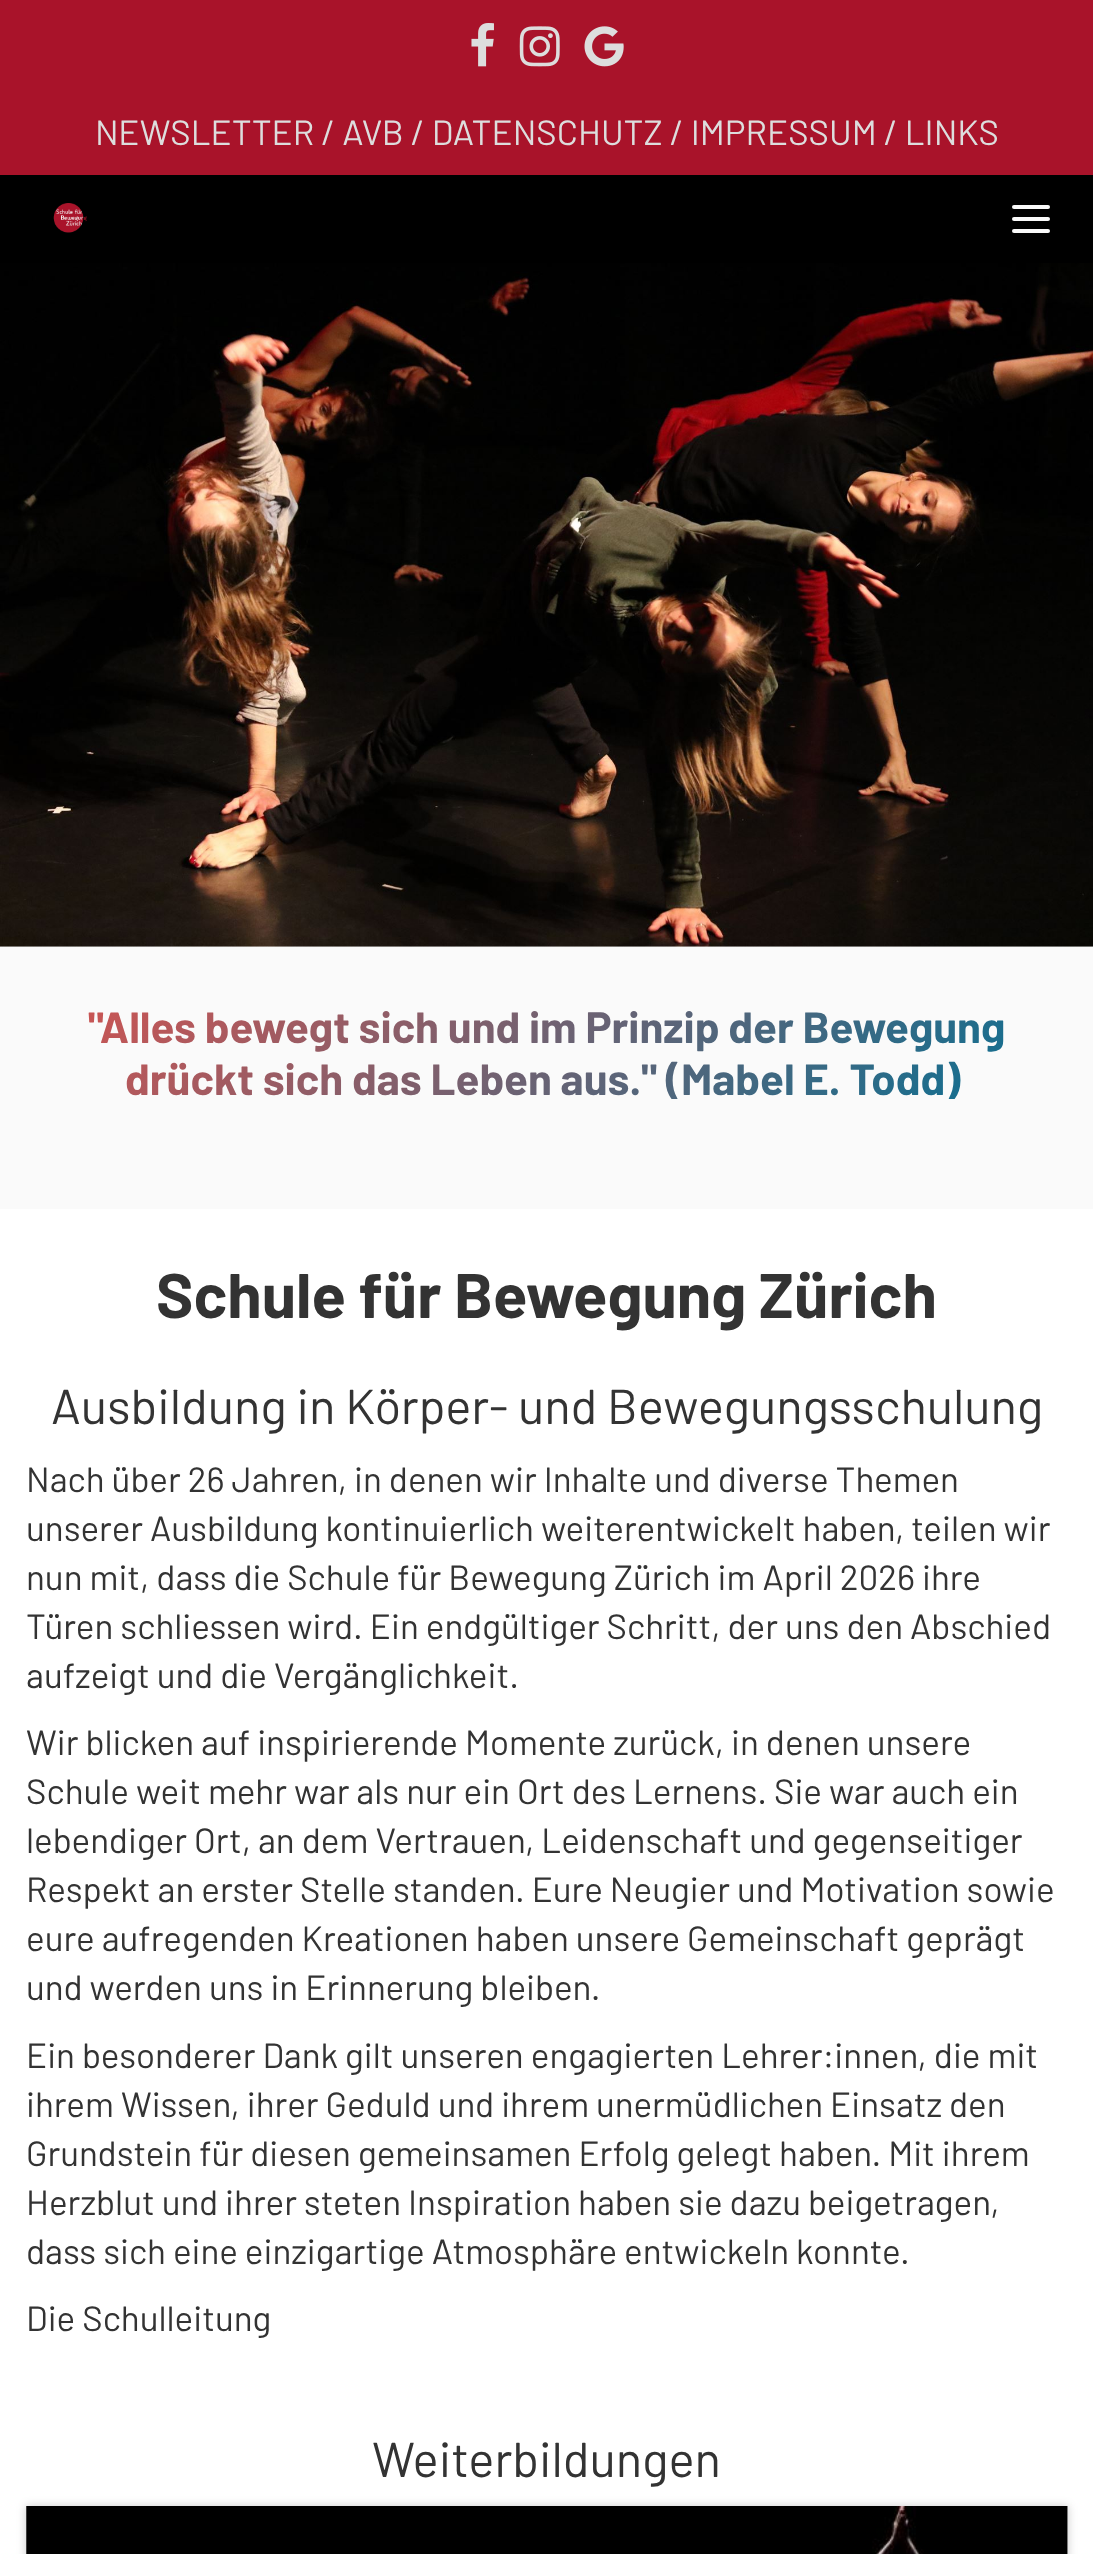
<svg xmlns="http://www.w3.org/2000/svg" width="1093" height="2554">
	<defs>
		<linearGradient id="g1" gradientUnits="userSpaceOnUse" x1="252" y1="756" x2="842" y2="1347"><stop offset="0" stop-color="#D9534F" /><stop offset="1" stop-color="#007196" /></linearGradient>
	</defs>
	<rect width="100%" height="100%" fill="#FFFFFF" />
	<rect x="0" y="0" width="1093" height="175" fill="#A9132A" />
	<image x="471" y="23" width="23" height="44" href="assets/img1.png" />
	<image x="519" y="26" width="41" height="41" href="assets/img2.png" />
	<image x="584" y="26" width="40" height="41" href="assets/img3.png" />
	<text x="95" y="145" font-family="Barlow" font-size="35" fill="#DDDDDD">NEWSLETTER / AVB / DATENSCHUTZ / IMPRESSUM / LINKS</text>
	<rect x="0" y="175" width="1093" height="88" fill="#000000" />
	<image x="53" y="203" width="34" height="30" href="assets/img4.png" />
	<rect x="1012" y="205" width="38" height="4" rx="2" fill="#FAFAFA" />
	<rect x="1012" y="217" width="38" height="4" rx="2" fill="#FAFAFA" />
	<rect x="1012" y="229" width="38" height="4" rx="2" fill="#FAFAFA" />
	<rect x="0" y="946" width="1093" height="263" fill="#FAFAFA" />
	<image x="0" y="263" width="1093" height="684" href="assets/img5.png" />
	<g font-family="Barlow" font-size="43.75" font-weight="700" fill="url(#g1)">
		<text x="88" y="1043">"Alles bewegt sich und im Prinzip der Bewegung</text>
		<text x="125" y="1095">drückt sich das Leben aus." (Mabel E. Todd)</text>
	</g>
	<text x="156" y="1318" font-family="Barlow" font-size="63" font-weight="700" fill="#333333">Schule für Bewegung Zürich</text>
	<text x="51" y="1424" font-family="Barlow" font-size="49" fill="#333333">Ausbildung in Körper- und Bewegungsschulung</text>
	<g font-family="Barlow" font-size="35" fill="#333333">
		<text x="26" y="1492">Nach über 26 Jahren, in denen wir Inhalte und diverse Themen</text>
		<text x="26" y="1541">unserer Ausbildung kontinuierlich weiterentwickelt haben, teilen wir</text>
		<text x="26" y="1590">nun mit, dass die Schule für Bewegung Zürich im April 2026 ihre</text>
		<text x="26" y="1639">Türen schliessen wird. Ein endgültiger Schritt, der uns den Abschied</text>
		<text x="26" y="1688">aufzeigt und die Vergänglichkeit.</text>
		<text x="26" y="1755">Wir blicken auf inspirierende Momente zurück, in denen unsere</text>
		<text x="26" y="1804">Schule weit mehr war als nur ein Ort des Lernens. Sie war auch ein</text>
		<text x="26" y="1853">lebendiger Ort, an dem Vertrauen, Leidenschaft und gegenseitiger</text>
		<text x="26" y="1902">Respekt an erster Stelle standen. Eure Neugier und Motivation sowie</text>
		<text x="26" y="1951">eure aufregenden Kreationen haben unsere Gemeinschaft geprägt</text>
		<text x="26" y="2000">und werden uns in Erinnerung bleiben.</text>
		<text x="26" y="2068">Ein besonderer Dank gilt unseren engagierten Lehrer:innen, die mit</text>
		<text x="26" y="2117">ihrem Wissen, ihrer Geduld und ihrem unermüdlichen Einsatz den</text>
		<text x="26" y="2166">Grundstein für diesen gemeinsamen Erfolg gelegt haben. Mit ihrem</text>
		<text x="26" y="2215">Herzblut und ihrer steten Inspiration haben sie dazu beigetragen,</text>
		<text x="26" y="2264">dass sich eine einzigartige Atmosphäre entwickeln konnte.</text>
		<text x="26" y="2331">Die Schulleitung</text>
	</g>
	<text x="372" y="2477" font-family="Barlow" font-size="49" fill="#333333">Weiterbildungen</text>
	<rect x="26" y="2506" width="1042" height="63" fill="#000000" fill-opacity="0.2" filter="blur(5px)" />
	<rect x="26" y="2506" width="1042" height="48" fill="#FFFFFF" />
	<image x="26" y="2506" width="1042" height="48" href="assets/img6.png" />
</svg>
